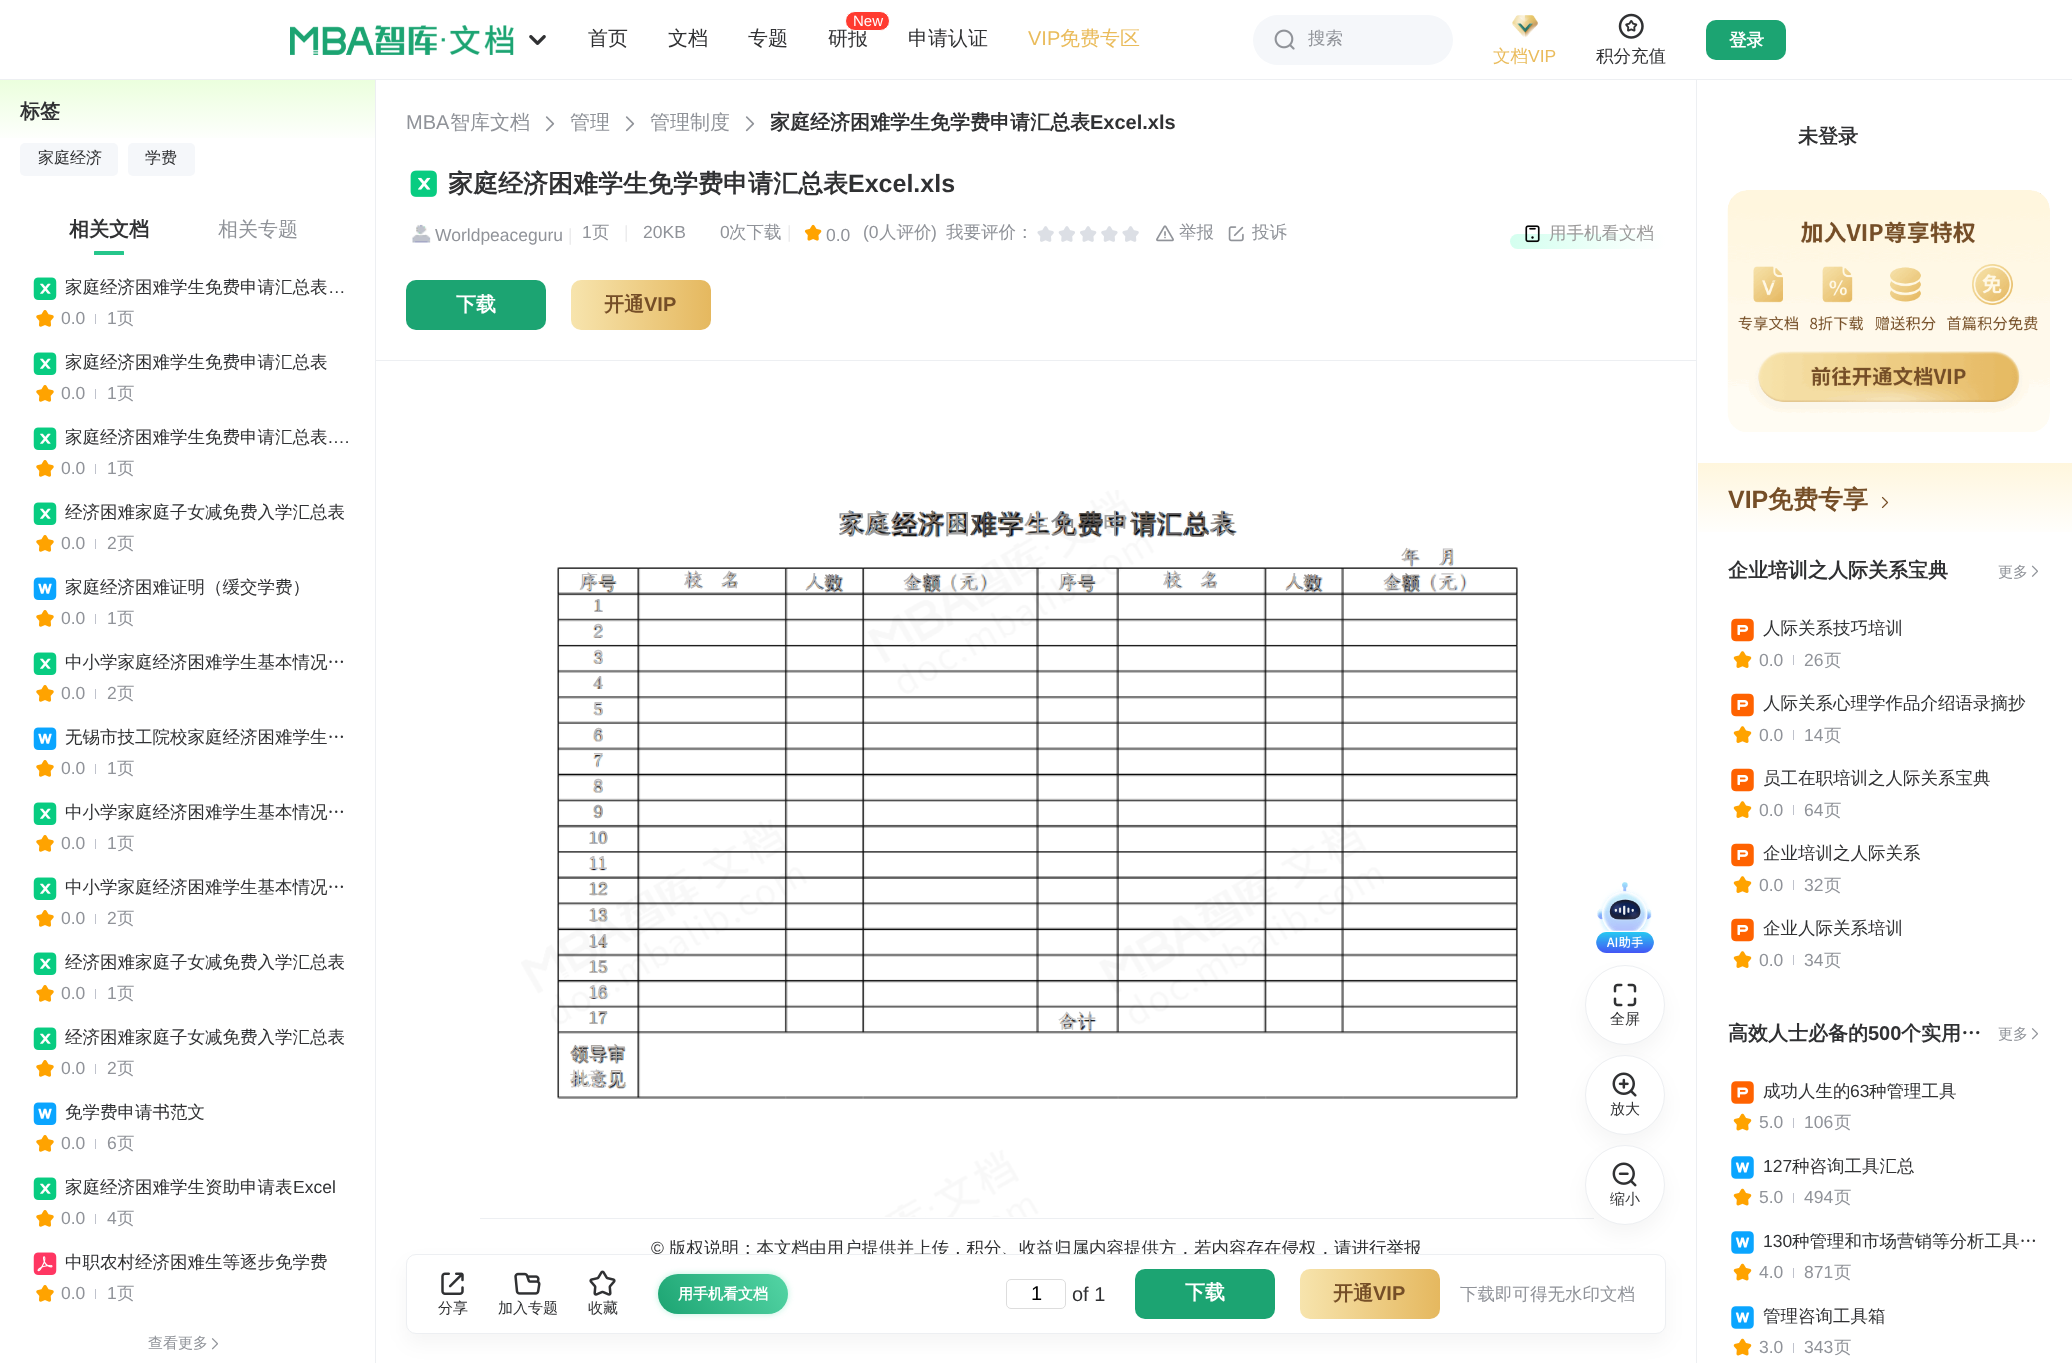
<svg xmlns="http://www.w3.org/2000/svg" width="2072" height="1363">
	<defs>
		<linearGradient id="g1" gradientUnits="userSpaceOnUse" x1="188" y1="80" x2="188" y2="143"><stop offset="0" stop-color="#EBFFDD" /><stop offset="1" stop-color="#FFFFFF" /></linearGradient>
		<linearGradient id="g2" gradientUnits="userSpaceOnUse" x1="1510" y1="241" x2="1666" y2="241"><stop offset="0" stop-color="#D4FFEF" /><stop offset="1" stop-color="#FFFFFF" /></linearGradient>
		<linearGradient id="g3" gradientUnits="userSpaceOnUse" x1="571" y1="305" x2="711" y2="305"><stop offset="0" stop-color="#F7E4AD" /><stop offset="1" stop-color="#E5B85F" /></linearGradient>
		<linearGradient id="g4" gradientUnits="userSpaceOnUse" x1="1885" y1="463" x2="1885" y2="538"><stop offset="0" stop-color="#FFF6DD" /><stop offset="1" stop-color="#FFFFFF" /></linearGradient>
		<linearGradient id="g5" gradientUnits="userSpaceOnUse" x1="669" y1="1330" x2="776" y2="1257"><stop offset="0" stop-color="#1CA472" /><stop offset="1" stop-color="#54D5A5" /></linearGradient>
		<linearGradient id="g6" gradientUnits="userSpaceOnUse" x1="1300" y1="1294" x2="1440" y2="1294"><stop offset="0" stop-color="#F7E4AD" /><stop offset="1" stop-color="#E5B85F" /></linearGradient>
	</defs>
	<rect width="100%" height="100%" fill="#FFFFFF" />
	<rect x="0" y="79" width="2072" height="1" fill="#EDEFF2" />
	<image x="290" y="25" width="224" height="30" href="assets/img1.png" />
	<image x="529" y="35" width="17" height="10" href="assets/img2.png" />
	<g font-family="WenQuanYi Zen Hei" font-size="20" font-weight="500" fill="#303133">
		<text x="588" y="45">首页</text>
		<text x="668" y="45">文档</text>
		<text x="748" y="45">专题</text>
		<text x="828" y="45">研报</text>
	</g>
	<rect x="845.5" y="11.5" width="44" height="19" rx="9.5" fill="#FF3B30" stroke="#FFFFFF" />
	<text x="853" y="26" font-family="Liberation Sans" font-size="15" fill="#FFFFFF">New</text>
	<text x="908" y="45" font-family="WenQuanYi Zen Hei" font-size="20" font-weight="500" fill="#303133">申请认证</text>
	<text x="1028" y="45" font-family="Liberation Sans" font-size="20" fill="#EABC5C">VIP</text>
	<text x="1060" y="45" font-family="WenQuanYi Zen Hei" font-size="20" font-weight="500" fill="#EABC5C">免费专区</text>
	<rect x="1253" y="15" width="200" height="50" rx="25" fill="#F5F7FA" />
	<image x="1274" y="29" width="21" height="21" href="assets/img3.png" />
	<text x="1308" y="44" font-family="WenQuanYi Zen Hei" font-size="17.5" font-weight="500" fill="#909399">搜索</text>
	<rect x="1706" y="20" width="80" height="40" rx="10" fill="#1CA472" />
	<text x="1729" y="46" font-family="WenQuanYi Zen Hei" font-size="17.5" font-weight="700" fill="#FFFFFF">登录</text>
	<image x="1512" y="15" width="26" height="23" href="assets/img4.png" />
	<text x="1493" y="62" font-family="WenQuanYi Zen Hei" font-size="17.5" font-weight="500" fill="#EABC5C">文档</text>
	<text x="1528" y="62" font-family="Liberation Sans" font-size="17.5" fill="#EABC5C">VIP</text>
	<image x="1618" y="13" width="26" height="26" href="assets/img5.png" />
	<text x="1596" y="62" font-family="WenQuanYi Zen Hei" font-size="17.5" font-weight="500" fill="#303133">积分充值</text>
	<rect x="0" y="80" width="375" height="58" fill="url(#g1)" />
	<text x="20" y="118" font-family="WenQuanYi Zen Hei" font-size="20" font-weight="700" fill="#303133">标签</text>
	<rect x="20" y="143" width="98" height="33" rx="5" fill="#F5F7FA" />
	<text x="38" y="163" font-family="WenQuanYi Zen Hei" font-size="16" font-weight="500" fill="#303133">家庭经济</text>
	<rect x="128" y="143" width="67" height="33" rx="5" fill="#F5F7FA" />
	<text x="145" y="163" font-family="WenQuanYi Zen Hei" font-size="16" font-weight="500" fill="#303133">学费</text>
	<text x="69" y="236" font-family="WenQuanYi Zen Hei" font-size="20" font-weight="700" fill="#303133">相关文档</text>
	<rect x="94" y="251" width="30" height="4" rx="0.5" fill="#25C68B" />
	<text x="218" y="236" font-family="WenQuanYi Zen Hei" font-size="20" font-weight="500" fill="#909399">相关专题</text>
	<image x="33" y="277" width="24" height="23" href="assets/img6.png" />
	<text x="65" y="293" font-family="WenQuanYi Zen Hei" font-size="17.5" font-weight="500" fill="#303133">家庭经济困难学生免费申请汇总表</text>
	<text x="328" y="293" font-family="Liberation Sans" font-size="17.5" fill="#303133">…</text>
	<image x="36" y="310" width="18" height="17" href="assets/img7.png" />
	<text x="61" y="324" font-family="Liberation Sans" font-size="17.5" fill="#909399">0.0</text>
	<rect x="95" y="314" width="1" height="10" fill="#BFC2CC" />
	<text x="107" y="324" font-family="Liberation Sans" font-size="17.5" fill="#909399">1</text>
	<text x="117" y="324" font-family="WenQuanYi Zen Hei" font-size="17.5" font-weight="500" fill="#909399">页</text>
	<image x="33" y="352" width="24" height="23" href="assets/img6.png" />
	<text x="65" y="368" font-family="WenQuanYi Zen Hei" font-size="17.5" font-weight="500" fill="#303133">家庭经济困难学生免费申请汇总表</text>
	<image x="36" y="385" width="18" height="17" href="assets/img7.png" />
	<text x="61" y="399" font-family="Liberation Sans" font-size="17.5" fill="#909399">0.0</text>
	<rect x="95" y="389" width="1" height="10" fill="#BFC2CC" />
	<text x="107" y="399" font-family="Liberation Sans" font-size="17.5" fill="#909399">1</text>
	<text x="117" y="399" font-family="WenQuanYi Zen Hei" font-size="17.5" font-weight="500" fill="#909399">页</text>
	<image x="33" y="427" width="24" height="23" href="assets/img6.png" />
	<text x="65" y="443" font-family="WenQuanYi Zen Hei" font-size="17.5" font-weight="500" fill="#303133">家庭经济困难学生免费申请汇总表</text>
	<text x="328" y="443" font-family="Liberation Sans" font-size="17.5" fill="#303133">.…</text>
	<image x="36" y="460" width="18" height="17" href="assets/img7.png" />
	<text x="61" y="474" font-family="Liberation Sans" font-size="17.5" fill="#909399">0.0</text>
	<rect x="95" y="464" width="1" height="10" fill="#BFC2CC" />
	<text x="107" y="474" font-family="Liberation Sans" font-size="17.5" fill="#909399">1</text>
	<text x="117" y="474" font-family="WenQuanYi Zen Hei" font-size="17.5" font-weight="500" fill="#909399">页</text>
	<image x="33" y="502" width="24" height="23" href="assets/img6.png" />
	<text x="65" y="518" font-family="WenQuanYi Zen Hei" font-size="17.5" font-weight="500" fill="#303133">经济困难家庭子女减免费入学汇总表</text>
	<image x="36" y="535" width="18" height="17" href="assets/img7.png" />
	<text x="61" y="549" font-family="Liberation Sans" font-size="17.5" fill="#909399">0.0</text>
	<rect x="95" y="539" width="1" height="10" fill="#BFC2CC" />
	<text x="107" y="549" font-family="Liberation Sans" font-size="17.5" fill="#909399">2</text>
	<text x="117" y="549" font-family="WenQuanYi Zen Hei" font-size="17.5" font-weight="500" fill="#909399">页</text>
	<image x="33" y="577" width="24" height="23" href="assets/img8.png" />
	<text x="65" y="593" font-family="WenQuanYi Zen Hei" font-size="17.5" font-weight="500" fill="#303133">家庭经济困难证明（缓交学费）</text>
	<image x="36" y="610" width="18" height="17" href="assets/img7.png" />
	<text x="61" y="624" font-family="Liberation Sans" font-size="17.5" fill="#909399">0.0</text>
	<rect x="95" y="614" width="1" height="10" fill="#BFC2CC" />
	<text x="107" y="624" font-family="Liberation Sans" font-size="17.5" fill="#909399">1</text>
	<text x="117" y="624" font-family="WenQuanYi Zen Hei" font-size="17.5" font-weight="500" fill="#909399">页</text>
	<image x="33" y="652" width="24" height="23" href="assets/img6.png" />
	<text x="65" y="668" font-family="WenQuanYi Zen Hei" font-size="17.5" font-weight="500" fill="#303133">中小学家庭经济困难学生基本情况…</text>
	<image x="36" y="685" width="18" height="17" href="assets/img7.png" />
	<text x="61" y="699" font-family="Liberation Sans" font-size="17.5" fill="#909399">0.0</text>
	<rect x="95" y="689" width="1" height="10" fill="#BFC2CC" />
	<text x="107" y="699" font-family="Liberation Sans" font-size="17.5" fill="#909399">2</text>
	<text x="117" y="699" font-family="WenQuanYi Zen Hei" font-size="17.5" font-weight="500" fill="#909399">页</text>
	<image x="33" y="727" width="24" height="23" href="assets/img8.png" />
	<text x="65" y="743" font-family="WenQuanYi Zen Hei" font-size="17.5" font-weight="500" fill="#303133">无锡市技工院校家庭经济困难学生…</text>
	<image x="36" y="760" width="18" height="17" href="assets/img7.png" />
	<text x="61" y="774" font-family="Liberation Sans" font-size="17.5" fill="#909399">0.0</text>
	<rect x="95" y="764" width="1" height="10" fill="#BFC2CC" />
	<text x="107" y="774" font-family="Liberation Sans" font-size="17.5" fill="#909399">1</text>
	<text x="117" y="774" font-family="WenQuanYi Zen Hei" font-size="17.5" font-weight="500" fill="#909399">页</text>
	<image x="33" y="802" width="24" height="23" href="assets/img6.png" />
	<text x="65" y="818" font-family="WenQuanYi Zen Hei" font-size="17.5" font-weight="500" fill="#303133">中小学家庭经济困难学生基本情况…</text>
	<image x="36" y="835" width="18" height="17" href="assets/img7.png" />
	<text x="61" y="849" font-family="Liberation Sans" font-size="17.5" fill="#909399">0.0</text>
	<rect x="95" y="839" width="1" height="10" fill="#BFC2CC" />
	<text x="107" y="849" font-family="Liberation Sans" font-size="17.5" fill="#909399">1</text>
	<text x="117" y="849" font-family="WenQuanYi Zen Hei" font-size="17.5" font-weight="500" fill="#909399">页</text>
	<image x="33" y="877" width="24" height="23" href="assets/img6.png" />
	<text x="65" y="893" font-family="WenQuanYi Zen Hei" font-size="17.5" font-weight="500" fill="#303133">中小学家庭经济困难学生基本情况…</text>
	<image x="36" y="910" width="18" height="17" href="assets/img7.png" />
	<text x="61" y="924" font-family="Liberation Sans" font-size="17.5" fill="#909399">0.0</text>
	<rect x="95" y="914" width="1" height="10" fill="#BFC2CC" />
	<text x="107" y="924" font-family="Liberation Sans" font-size="17.5" fill="#909399">2</text>
	<text x="117" y="924" font-family="WenQuanYi Zen Hei" font-size="17.5" font-weight="500" fill="#909399">页</text>
	<image x="33" y="952" width="24" height="23" href="assets/img6.png" />
	<text x="65" y="968" font-family="WenQuanYi Zen Hei" font-size="17.5" font-weight="500" fill="#303133">经济困难家庭子女减免费入学汇总表</text>
	<image x="36" y="985" width="18" height="17" href="assets/img7.png" />
	<text x="61" y="999" font-family="Liberation Sans" font-size="17.5" fill="#909399">0.0</text>
	<rect x="95" y="989" width="1" height="10" fill="#BFC2CC" />
	<text x="107" y="999" font-family="Liberation Sans" font-size="17.5" fill="#909399">1</text>
	<text x="117" y="999" font-family="WenQuanYi Zen Hei" font-size="17.5" font-weight="500" fill="#909399">页</text>
	<image x="33" y="1027" width="24" height="23" href="assets/img6.png" />
	<text x="65" y="1043" font-family="WenQuanYi Zen Hei" font-size="17.5" font-weight="500" fill="#303133">经济困难家庭子女减免费入学汇总表</text>
	<image x="36" y="1060" width="18" height="17" href="assets/img7.png" />
	<text x="61" y="1074" font-family="Liberation Sans" font-size="17.5" fill="#909399">0.0</text>
	<rect x="95" y="1064" width="1" height="10" fill="#BFC2CC" />
	<text x="107" y="1074" font-family="Liberation Sans" font-size="17.5" fill="#909399">2</text>
	<text x="117" y="1074" font-family="WenQuanYi Zen Hei" font-size="17.5" font-weight="500" fill="#909399">页</text>
	<image x="33" y="1102" width="24" height="23" href="assets/img8.png" />
	<text x="65" y="1118" font-family="WenQuanYi Zen Hei" font-size="17.5" font-weight="500" fill="#303133">免学费申请书范文</text>
	<image x="36" y="1135" width="18" height="17" href="assets/img7.png" />
	<text x="61" y="1149" font-family="Liberation Sans" font-size="17.5" fill="#909399">0.0</text>
	<rect x="95" y="1139" width="1" height="10" fill="#BFC2CC" />
	<text x="107" y="1149" font-family="Liberation Sans" font-size="17.5" fill="#909399">6</text>
	<text x="117" y="1149" font-family="WenQuanYi Zen Hei" font-size="17.5" font-weight="500" fill="#909399">页</text>
	<image x="33" y="1177" width="24" height="23" href="assets/img6.png" />
	<text x="65" y="1193" font-family="WenQuanYi Zen Hei" font-size="17.5" font-weight="500" fill="#303133">家庭经济困难学生资助申请表</text>
	<text x="293" y="1193" font-family="Liberation Sans" font-size="17.5" fill="#303133">Excel</text>
	<image x="36" y="1210" width="18" height="17" href="assets/img7.png" />
	<text x="61" y="1224" font-family="Liberation Sans" font-size="17.5" fill="#909399">0.0</text>
	<rect x="95" y="1214" width="1" height="10" fill="#BFC2CC" />
	<text x="107" y="1224" font-family="Liberation Sans" font-size="17.5" fill="#909399">4</text>
	<text x="117" y="1224" font-family="WenQuanYi Zen Hei" font-size="17.5" font-weight="500" fill="#909399">页</text>
	<image x="33" y="1252" width="24" height="23" href="assets/img9.png" />
	<text x="65" y="1268" font-family="WenQuanYi Zen Hei" font-size="17.5" font-weight="500" fill="#303133">中职农村经济困难生等逐步免学费</text>
	<image x="36" y="1285" width="18" height="17" href="assets/img7.png" />
	<text x="61" y="1299" font-family="Liberation Sans" font-size="17.5" fill="#909399">0.0</text>
	<rect x="95" y="1289" width="1" height="10" fill="#BFC2CC" />
	<text x="107" y="1299" font-family="Liberation Sans" font-size="17.5" fill="#909399">1</text>
	<text x="117" y="1299" font-family="WenQuanYi Zen Hei" font-size="17.5" font-weight="500" fill="#909399">页</text>
	<text x="148" y="1348" font-family="WenQuanYi Zen Hei" font-size="15" font-weight="500" fill="#909399">查看更多</text>
	<image x="211" y="1338" width="7" height="12" href="assets/img10.png" />
	<rect x="1696" y="80" width="1" height="1283" fill="#EDEFF2" />
	<rect x="375" y="80" width="1" height="1283" fill="#EDEFF2" />
	<rect x="376" y="360" width="1320" height="1" fill="#EDEFF2" />
	<text x="406" y="129" font-family="Liberation Sans" font-size="20" fill="#909399">MBA</text>
	<text x="450" y="129" font-family="WenQuanYi Zen Hei" font-size="20" font-weight="500" fill="#909399">智库文档</text>
	<image x="545" y="116" width="10" height="16" href="assets/img11.png" />
	<text x="570" y="129" font-family="WenQuanYi Zen Hei" font-size="20" font-weight="500" fill="#909399">管理</text>
	<image x="625" y="116" width="10" height="16" href="assets/img11.png" />
	<text x="650" y="129" font-family="WenQuanYi Zen Hei" font-size="20" font-weight="500" fill="#909399">管理制度</text>
	<image x="745" y="116" width="10" height="16" href="assets/img11.png" />
	<text x="770" y="129" font-family="WenQuanYi Zen Hei" font-size="20" font-weight="700" fill="#303133">家庭经济困难学生免学费申请汇总表</text>
	<text x="1090" y="129" font-family="Liberation Sans" font-size="20" font-weight="700" fill="#303133">Excel.xls</text>
	<image x="410" y="170" width="27" height="27" href="assets/img12.png" />
	<text x="448" y="192" font-family="WenQuanYi Zen Hei" font-size="25" font-weight="700" fill="#303133">家庭经济困难学生免学费申请汇总表</text>
	<text x="848" y="192" font-family="Liberation Sans" font-size="25" font-weight="700" fill="#303133">Excel.xls</text>
	<image x="412" y="224" width="19" height="19" href="assets/img13.png" />
	<text x="435" y="241" font-family="Liberation Sans" font-size="17.5" fill="#909399">Worldpeaceguru</text>
	<text x="568" y="241" font-family="Liberation Sans" font-size="17.5" fill="#ECECED">|</text>
	<text x="582" y="238" font-family="Liberation Sans" font-size="17.5" fill="#909399">1</text>
	<text x="592" y="238" font-family="WenQuanYi Zen Hei" font-size="17.5" font-weight="500" fill="#909399">页</text>
	<text x="624" y="238" font-family="Liberation Sans" font-size="17.5" fill="#ECECED">|</text>
	<g font-family="Liberation Sans" font-size="17.5" fill="#909399">
		<text x="643" y="238">20KB</text>
		<text x="720" y="238">0</text>
	</g>
	<text x="729" y="238" font-family="WenQuanYi Zen Hei" font-size="17.5" font-weight="500" fill="#909399">次下载</text>
	<text x="787" y="238" font-family="Liberation Sans" font-size="17.5" fill="#ECECED">|</text>
	<image x="804" y="224" width="18" height="17" href="assets/img14.png" />
	<g font-family="Liberation Sans" font-size="17.5" fill="#909399">
		<text x="826" y="241">0.0</text>
		<text x="863" y="238">(0</text>
	</g>
	<text x="879" y="238" font-family="WenQuanYi Zen Hei" font-size="17.5" font-weight="500" fill="#909399">人评价</text>
	<text x="931" y="238" font-family="Liberation Sans" font-size="17.5" fill="#909399">)</text>
	<text x="946" y="238" font-family="WenQuanYi Zen Hei" font-size="17.5" font-weight="500" fill="#909399">我要评价：</text>
	<image x="1037" y="226" width="17" height="16" href="assets/img15.png" />
	<image x="1058" y="226" width="17" height="16" href="assets/img16.png" />
	<image x="1080" y="226" width="17" height="16" href="assets/img17.png" />
	<image x="1101" y="226" width="17" height="16" href="assets/img18.png" />
	<image x="1122" y="226" width="17" height="16" href="assets/img15.png" />
	<image x="1156" y="225" width="18" height="17" href="assets/img19.png" />
	<text x="1179" y="238" font-family="WenQuanYi Zen Hei" font-size="17.5" font-weight="500" fill="#909399">举报</text>
	<image x="1228" y="226" width="16" height="16" href="assets/img20.png" />
	<text x="1252" y="238" font-family="WenQuanYi Zen Hei" font-size="17.5" font-weight="500" fill="#909399">投诉</text>
	<rect x="1510" y="234" width="156" height="15" rx="7.5" fill="url(#g2)" />
	<image x="1525" y="225" width="15" height="18" href="assets/img21.png" />
	<text x="1549" y="239" font-family="WenQuanYi Zen Hei" font-size="17.5" font-weight="500" fill="#9B9A9A">用手机看文档</text>
	<rect x="406" y="280" width="140" height="50" rx="10" fill="#1CA472" />
	<text x="456" y="311" font-family="WenQuanYi Zen Hei" font-size="20" font-weight="700" fill="#FFFFFF">下载</text>
	<rect x="571" y="280" width="140" height="50" rx="10" fill="url(#g3)" />
	<text x="604" y="311" font-family="WenQuanYi Zen Hei" font-size="20" font-weight="700" fill="#754E27">开通</text>
	<text x="644" y="311" font-family="Liberation Sans" font-size="20" font-weight="700" fill="#754E27">VIP</text>
	<image x="557" y="510" width="961" height="589" href="assets/img23.png" />
	<image x="521" y="490" width="863" height="727" href="assets/img22.png" />
	<text x="838" y="533" font-family="WenQuanYi Zen Hei" font-size="27" font-weight="500" fill="#909399">家</text>
	<text x="864" y="533" font-family="WenQuanYi Zen Hei" font-size="27" font-weight="500" fill="#9B9A9A">庭</text>
	<text x="891" y="533" font-family="WenQuanYi Zen Hei" font-size="27" font-weight="500" fill="#8B8784">经</text>
	<text x="917" y="533" font-family="WenQuanYi Zen Hei" font-size="27" font-weight="500" fill="#7C7064">济</text>
	<text x="944" y="533" font-family="WenQuanYi Zen Hei" font-size="27" font-weight="500" fill="#A0A1A1">困</text>
	<text x="970" y="533" font-family="WenQuanYi Zen Hei" font-size="27" font-weight="500" fill="#534A45">难</text>
	<text x="997" y="533" font-family="WenQuanYi Zen Hei" font-size="27" font-weight="500" fill="#756D64">学</text>
	<text x="1024" y="533" font-family="WenQuanYi Zen Hei" font-size="27" font-weight="500" fill="#ADA8A4">生</text>
	<text x="1050" y="533" font-family="WenQuanYi Zen Hei" font-size="27" font-weight="500" fill="#8F8F91">免</text>
	<text x="1077" y="533" font-family="WenQuanYi Zen Hei" font-size="27" font-weight="500" fill="#57514E">费</text>
	<text x="1103" y="533" font-family="WenQuanYi Zen Hei" font-size="27" font-weight="500" fill="#A0A1A1">申</text>
	<text x="1130" y="533" font-family="WenQuanYi Zen Hei" font-size="27" font-weight="500" fill="#6F6458">请</text>
	<text x="1156" y="533" font-family="WenQuanYi Zen Hei" font-size="27" font-weight="500" fill="#666265">汇</text>
	<text x="1183" y="533" font-family="WenQuanYi Zen Hei" font-size="27" font-weight="500" fill="#625B59">总</text>
	<text x="1209" y="533" font-family="WenQuanYi Zen Hei" font-size="27" font-weight="500" fill="#96918D">表</text>
	<text x="1401" y="563" font-family="WenQuanYi Zen Hei" font-size="19" font-weight="500" fill="#B9B5B2">年</text>
	<g font-family="WenQuanYi Zen Hei" font-size="19" font-weight="500" fill="#BFBDBF">
		<text x="1438" y="563">月</text>
		<text x="579" y="588">序</text>
	</g>
	<text x="598" y="589" font-family="WenQuanYi Zen Hei" font-size="19" font-weight="500" fill="#B9B5B2">号</text>
	<text x="684" y="586" font-family="WenQuanYi Zen Hei" font-size="19" font-weight="500" fill="#BFBDBF">校</text>
	<text x="721" y="586" font-family="WenQuanYi Zen Hei" font-size="19" font-weight="500" fill="#BCBAB9">名</text>
	<text x="805" y="588" font-family="WenQuanYi Zen Hei" font-size="19" font-weight="500" fill="#B3B2B5">人</text>
	<text x="824" y="589" font-family="WenQuanYi Zen Hei" font-size="19" font-weight="500" fill="#96918D">数</text>
	<text x="903" y="588" font-family="WenQuanYi Zen Hei" font-size="19" font-weight="500" fill="#BFBDBF">金</text>
	<text x="922" y="589" font-family="WenQuanYi Zen Hei" font-size="19" font-weight="500" fill="#918B88">额</text>
	<text x="940" y="588" font-family="WenQuanYi Zen Hei" font-size="19" font-weight="500" fill="#B0BBCA">（</text>
	<text x="959" y="588" font-family="WenQuanYi Zen Hei" font-size="19" font-weight="500" fill="#C4C3C5">元</text>
	<text x="1058" y="588" font-family="WenQuanYi Zen Hei" font-size="19" font-weight="500" fill="#BCBAB9">序</text>
	<text x="1077" y="589" font-family="WenQuanYi Zen Hei" font-size="19" font-weight="500" fill="#B2AEAB">号</text>
	<g font-family="WenQuanYi Zen Hei" font-size="19" font-weight="500" fill="#BFBDBF">
		<text x="1163" y="586">校</text>
		<text x="1200" y="586">名</text>
	</g>
	<text x="1285" y="588" font-family="WenQuanYi Zen Hei" font-size="19" font-weight="500" fill="#B3B2B5">人</text>
	<text x="1303" y="589" font-family="WenQuanYi Zen Hei" font-size="19" font-weight="500" fill="#96918D">数</text>
	<text x="1383" y="588" font-family="WenQuanYi Zen Hei" font-size="19" font-weight="500" fill="#BFBDBF">金</text>
	<text x="1401" y="589" font-family="WenQuanYi Zen Hei" font-size="19" font-weight="500" fill="#8B8784">额</text>
	<text x="1420" y="588" font-family="WenQuanYi Zen Hei" font-size="19" font-weight="500" fill="#B6BECC">（</text>
	<text x="1438" y="588" font-family="WenQuanYi Zen Hei" font-size="19" font-weight="500" fill="#C4C3C5">元</text>
	<text x="593" y="612" font-family="Liberation Sans" font-size="19" fill="#ADAFB5">1</text>
	<text x="593" y="637" font-family="Liberation Sans" font-size="19" fill="#BFBDBF">2</text>
	<text x="593" y="663" font-family="Liberation Sans" font-size="19" fill="#C4C3C5">3</text>
	<text x="593" y="689" font-family="Liberation Sans" font-size="19" fill="#B3B2B5">4</text>
	<text x="593" y="715" font-family="Liberation Sans" font-size="19" fill="#BFBDBF">5</text>
	<text x="593" y="741" font-family="Liberation Sans" font-size="19" fill="#BCBAB9">6</text>
	<g font-family="Liberation Sans" font-size="19" fill="#BFBDBF">
		<text x="593" y="766">7</text>
		<text x="593" y="792">8</text>
	</g>
	<text x="593" y="818" font-family="Liberation Sans" font-size="19" fill="#ACAAAD">9</text>
	<text x="588" y="844" font-family="Liberation Sans" font-size="19" letter-spacing="-1" fill="#B3B2B5">10</text>
	<text x="588" y="869" font-family="Liberation Sans" font-size="19" fill="#BFBDBF">11</text>
	<text x="588" y="895" font-family="Liberation Sans" font-size="19" letter-spacing="-1" fill="#B2AEAB">12</text>
	<text x="588" y="921" font-family="Liberation Sans" font-size="19" letter-spacing="-1" fill="#B9B5B2">13</text>
	<text x="588" y="947" font-family="Liberation Sans" font-size="19" letter-spacing="-1" fill="#B3B2B5">14</text>
	<text x="588" y="973" font-family="Liberation Sans" font-size="19" letter-spacing="-1" fill="#B9B5B2">15</text>
	<text x="588" y="998" font-family="Liberation Sans" font-size="19" letter-spacing="-1" fill="#BFBDBF">16</text>
	<text x="588" y="1024" font-family="Liberation Sans" font-size="19" letter-spacing="-1" fill="#B2AEAB">17</text>
	<text x="1058" y="1027" font-family="WenQuanYi Zen Hei" font-size="19" font-weight="500" fill="#CACBCB">合</text>
	<text x="1077" y="1027" font-family="WenQuanYi Zen Hei" font-size="19" font-weight="500" fill="#BCBAB9">计</text>
	<text x="570" y="1060" font-family="WenQuanYi Zen Hei" font-size="19" font-weight="500" fill="#A19995">领</text>
	<g font-family="WenQuanYi Zen Hei" font-size="19" font-weight="500" fill="#ADA8A4">
		<text x="588" y="1060">导</text>
		<text x="607" y="1060">审</text>
	</g>
	<text x="570" y="1085" font-family="WenQuanYi Zen Hei" font-size="19" font-weight="500" fill="#CAC6C0">批</text>
	<text x="588" y="1085" font-family="WenQuanYi Zen Hei" font-size="19" font-weight="500" fill="#BFBDBF">意</text>
	<text x="607" y="1085" font-family="WenQuanYi Zen Hei" font-size="19" font-weight="500" fill="#B8ADA3">见</text>
	<rect x="480" y="1218" width="1114" height="1" fill="#EDEFF2" />
	<text x="651" y="1254" font-family="Liberation Sans" font-size="17.5" fill="#303133">©</text>
	<text x="669" y="1254" font-family="WenQuanYi Zen Hei" font-size="17.5" font-weight="500" fill="#303133">版权说明：本文档由用户提供并上传，积分、收益归属内容提供方，若内容存在侵权，请进行举报</text>
	<text x="1798" y="143" font-family="WenQuanYi Zen Hei" font-size="20" font-weight="700" fill="#303133">未登录</text>
	<image x="1727" y="190" width="323" height="242" href="assets/img24.png" />
	<rect x="1698" y="463" width="374" height="69" fill="url(#g4)" />
	<text x="1728" y="508" font-family="Liberation Sans" font-size="25" font-weight="700" fill="#754E27">VIP</text>
	<text x="1768" y="508" font-family="WenQuanYi Zen Hei" font-size="25" font-weight="700" fill="#754E27">免费专享</text>
	<image x="1881" y="496" width="8" height="13" href="assets/img25.png" />
	<text x="1728" y="577" font-family="WenQuanYi Zen Hei" font-size="20" font-weight="700" fill="#303133">企业培训之人际关系宝典</text>
	<text x="1998" y="577" font-family="WenQuanYi Zen Hei" font-size="15" font-weight="500" fill="#909399">更多</text>
	<image x="2031" y="565" width="7" height="12" href="assets/img26.png" />
	<image x="1731" y="618" width="23" height="24" href="assets/img27.png" />
	<text x="1763" y="634" font-family="WenQuanYi Zen Hei" font-size="17.5" font-weight="500" fill="#303133">人际关系技巧培训</text>
	<image x="1733" y="651" width="19" height="17" href="assets/img28.png" />
	<text x="1759" y="666" font-family="Liberation Sans" font-size="17.5" fill="#909399">0.0</text>
	<rect x="1793" y="655" width="1" height="10" fill="#BFC2CC" />
	<text x="1804" y="666" font-family="Liberation Sans" font-size="17.5" fill="#909399">26</text>
	<text x="1824" y="666" font-family="WenQuanYi Zen Hei" font-size="17.5" font-weight="500" fill="#909399">页</text>
	<image x="1731" y="693" width="23" height="24" href="assets/img27.png" />
	<text x="1763" y="709" font-family="WenQuanYi Zen Hei" font-size="17.5" font-weight="500" fill="#303133">人际关系心理学作品介绍语录摘抄</text>
	<image x="1733" y="726" width="19" height="17" href="assets/img28.png" />
	<text x="1759" y="741" font-family="Liberation Sans" font-size="17.5" fill="#909399">0.0</text>
	<rect x="1793" y="730" width="1" height="10" fill="#BFC2CC" />
	<text x="1804" y="741" font-family="Liberation Sans" font-size="17.5" fill="#909399">14</text>
	<text x="1824" y="741" font-family="WenQuanYi Zen Hei" font-size="17.5" font-weight="500" fill="#909399">页</text>
	<image x="1731" y="768" width="23" height="24" href="assets/img27.png" />
	<text x="1763" y="784" font-family="WenQuanYi Zen Hei" font-size="17.5" font-weight="500" fill="#303133">员工在职培训之人际关系宝典</text>
	<image x="1733" y="801" width="19" height="17" href="assets/img28.png" />
	<text x="1759" y="816" font-family="Liberation Sans" font-size="17.5" fill="#909399">0.0</text>
	<rect x="1793" y="805" width="1" height="10" fill="#BFC2CC" />
	<text x="1804" y="816" font-family="Liberation Sans" font-size="17.5" fill="#909399">64</text>
	<text x="1824" y="816" font-family="WenQuanYi Zen Hei" font-size="17.5" font-weight="500" fill="#909399">页</text>
	<image x="1731" y="843" width="23" height="24" href="assets/img27.png" />
	<text x="1763" y="859" font-family="WenQuanYi Zen Hei" font-size="17.5" font-weight="500" fill="#303133">企业培训之人际关系</text>
	<image x="1733" y="876" width="19" height="17" href="assets/img28.png" />
	<text x="1759" y="891" font-family="Liberation Sans" font-size="17.5" fill="#909399">0.0</text>
	<rect x="1793" y="880" width="1" height="10" fill="#BFC2CC" />
	<text x="1804" y="891" font-family="Liberation Sans" font-size="17.5" fill="#909399">32</text>
	<text x="1824" y="891" font-family="WenQuanYi Zen Hei" font-size="17.5" font-weight="500" fill="#909399">页</text>
	<image x="1731" y="918" width="23" height="24" href="assets/img27.png" />
	<text x="1763" y="934" font-family="WenQuanYi Zen Hei" font-size="17.5" font-weight="500" fill="#303133">企业人际关系培训</text>
	<image x="1733" y="951" width="19" height="17" href="assets/img28.png" />
	<text x="1759" y="966" font-family="Liberation Sans" font-size="17.5" fill="#909399">0.0</text>
	<rect x="1793" y="955" width="1" height="10" fill="#BFC2CC" />
	<text x="1804" y="966" font-family="Liberation Sans" font-size="17.5" fill="#909399">34</text>
	<text x="1824" y="966" font-family="WenQuanYi Zen Hei" font-size="17.5" font-weight="500" fill="#909399">页</text>
	<text x="1728" y="1040" font-family="WenQuanYi Zen Hei" font-size="20" font-weight="700" fill="#303133">高效人士必备的</text>
	<text x="1868" y="1040" font-family="Liberation Sans" font-size="20" font-weight="700" fill="#303133">500</text>
	<text x="1901" y="1040" font-family="WenQuanYi Zen Hei" font-size="20" font-weight="700" fill="#303133">个实用…</text>
	<text x="1998" y="1039" font-family="WenQuanYi Zen Hei" font-size="15" font-weight="500" fill="#909399">更多</text>
	<image x="2031" y="1028" width="7" height="12" href="assets/img10.png" />
	<image x="1731" y="1081" width="23" height="23" href="assets/img29.png" />
	<text x="1763" y="1097" font-family="WenQuanYi Zen Hei" font-size="17.5" font-weight="500" fill="#303133">成功人生的</text>
	<text x="1850" y="1097" font-family="Liberation Sans" font-size="17.5" fill="#303133">63</text>
	<text x="1869" y="1097" font-family="WenQuanYi Zen Hei" font-size="17.5" font-weight="500" fill="#303133">种管理工具</text>
	<image x="1733" y="1113" width="19" height="18" href="assets/img30.png" />
	<text x="1759" y="1128" font-family="Liberation Sans" font-size="17.5" fill="#909399">5.0</text>
	<rect x="1793" y="1118" width="1" height="10" fill="#BFC2CC" />
	<text x="1804" y="1128" font-family="Liberation Sans" font-size="17.5" fill="#909399">106</text>
	<text x="1834" y="1128" font-family="WenQuanYi Zen Hei" font-size="17.5" font-weight="500" fill="#909399">页</text>
	<image x="1731" y="1156" width="23" height="23" href="assets/img31.png" />
	<text x="1763" y="1172" font-family="Liberation Sans" font-size="17.5" fill="#303133">127</text>
	<text x="1792" y="1172" font-family="WenQuanYi Zen Hei" font-size="17.5" font-weight="500" fill="#303133">种咨询工具汇总</text>
	<image x="1733" y="1188" width="19" height="18" href="assets/img30.png" />
	<text x="1759" y="1203" font-family="Liberation Sans" font-size="17.5" fill="#909399">5.0</text>
	<rect x="1793" y="1193" width="1" height="10" fill="#BFC2CC" />
	<text x="1804" y="1203" font-family="Liberation Sans" font-size="17.5" fill="#909399">494</text>
	<text x="1834" y="1203" font-family="WenQuanYi Zen Hei" font-size="17.5" font-weight="500" fill="#909399">页</text>
	<image x="1731" y="1231" width="23" height="23" href="assets/img31.png" />
	<text x="1763" y="1247" font-family="Liberation Sans" font-size="17.5" fill="#303133">130</text>
	<text x="1792" y="1247" font-family="WenQuanYi Zen Hei" font-size="17.5" font-weight="500" fill="#303133">种管理和市场营销等分析工具…</text>
	<image x="1733" y="1263" width="19" height="18" href="assets/img30.png" />
	<text x="1759" y="1278" font-family="Liberation Sans" font-size="17.5" fill="#909399">4.0</text>
	<rect x="1793" y="1268" width="1" height="10" fill="#BFC2CC" />
	<text x="1804" y="1278" font-family="Liberation Sans" font-size="17.5" fill="#909399">871</text>
	<text x="1834" y="1278" font-family="WenQuanYi Zen Hei" font-size="17.5" font-weight="500" fill="#909399">页</text>
	<image x="1731" y="1306" width="23" height="23" href="assets/img31.png" />
	<text x="1763" y="1322" font-family="WenQuanYi Zen Hei" font-size="17.5" font-weight="500" fill="#303133">管理咨询工具箱</text>
	<image x="1733" y="1338" width="19" height="18" href="assets/img30.png" />
	<text x="1759" y="1353" font-family="Liberation Sans" font-size="17.5" fill="#909399">3.0</text>
	<rect x="1793" y="1343" width="1" height="10" fill="#BFC2CC" />
	<text x="1804" y="1353" font-family="Liberation Sans" font-size="17.5" fill="#909399">343</text>
	<text x="1834" y="1353" font-family="WenQuanYi Zen Hei" font-size="17.5" font-weight="500" fill="#909399">页</text>
	<rect x="656" y="1254" width="765" height="3" fill="#FFFFFF" />
	<rect x="406" y="1264" width="1260" height="80" rx="10" fill="#000000" fill-opacity="0.04" filter="blur(10px)" />
	<rect x="406.5" y="1254.5" width="1259" height="79" rx="9.5" fill="#FFFFFF" stroke="#EDEFF2" />
	<image x="1596" y="882" width="58" height="71" href="assets/img32.png" />
	<rect x="1585" y="975" width="80" height="80" rx="40" fill="#000000" fill-opacity="0.04" filter="blur(10px)" />
	<circle cx="1625" cy="1005" r="39.5" fill="#FFFFFF" stroke="#EDEFF2" />
	<image x="1613" y="983" width="24" height="24" href="assets/img33.png" />
	<text x="1610" y="1024" font-family="WenQuanYi Zen Hei" font-size="15" font-weight="500" fill="#303133">全屏</text>
	<rect x="1585" y="1065" width="80" height="80" rx="40" fill="#000000" fill-opacity="0.04" filter="blur(10px)" />
	<circle cx="1625" cy="1095" r="39.5" fill="#FFFFFF" stroke="#EDEFF2" />
	<image x="1612" y="1072" width="25" height="25" href="assets/img34.png" />
	<text x="1610" y="1114" font-family="WenQuanYi Zen Hei" font-size="15" font-weight="500" fill="#303133">放大</text>
	<rect x="1585" y="1155" width="80" height="80" rx="40" fill="#000000" fill-opacity="0.04" filter="blur(10px)" />
	<circle cx="1625" cy="1185" r="39.5" fill="#FFFFFF" stroke="#EDEFF2" />
	<image x="1612" y="1162" width="25" height="25" href="assets/img35.png" />
	<text x="1610" y="1204" font-family="WenQuanYi Zen Hei" font-size="15" font-weight="500" fill="#303133">缩小</text>
	<rect x="658" y="1274" width="130" height="40" rx="20" fill="#54DCAA" fill-opacity="0.4" filter="blur(3px)" />
	<rect x="658" y="1274" width="130" height="40" rx="20" fill="url(#g5)" />
	<text x="678" y="1299" font-family="WenQuanYi Zen Hei" font-size="15" font-weight="700" fill="#FFFFFF">用手机看文档</text>
	<image x="441" y="1272" width="23" height="23" href="assets/img36.png" />
	<text x="438" y="1313" font-family="WenQuanYi Zen Hei" font-size="15" font-weight="500" fill="#303133">分享</text>
	<image x="514" y="1272" width="27" height="23" href="assets/img37.png" />
	<text x="498" y="1313" font-family="WenQuanYi Zen Hei" font-size="15" font-weight="500" fill="#303133">加入专题</text>
	<image x="589" y="1270" width="27" height="26" href="assets/img38.png" />
	<text x="588" y="1313" font-family="WenQuanYi Zen Hei" font-size="15" font-weight="500" fill="#303133">收藏</text>
	<rect x="1006.5" y="1279.5" width="59" height="29" rx="4.5" fill="none" stroke="#DDDDDD" />
	<text x="1031" y="1300" font-family="Liberation Sans" font-size="20" fill="#000000">1</text>
	<text x="1072" y="1301" font-family="Liberation Sans" font-size="20" fill="#303133">of 1</text>
	<rect x="1135" y="1269" width="140" height="50" rx="10" fill="#1CA472" />
	<text x="1185" y="1299" font-family="WenQuanYi Zen Hei" font-size="20" font-weight="700" fill="#FFFFFF">下载</text>
	<rect x="1300" y="1269" width="140" height="50" rx="10" fill="url(#g6)" />
	<text x="1333" y="1300" font-family="WenQuanYi Zen Hei" font-size="20" font-weight="700" fill="#754E27">开通</text>
	<text x="1373" y="1300" font-family="Liberation Sans" font-size="20" font-weight="700" fill="#754E27">VIP</text>
	<text x="1460" y="1300" font-family="WenQuanYi Zen Hei" font-size="17.5" font-weight="500" fill="#909399">下载即可得无水印文档</text>
</svg>
